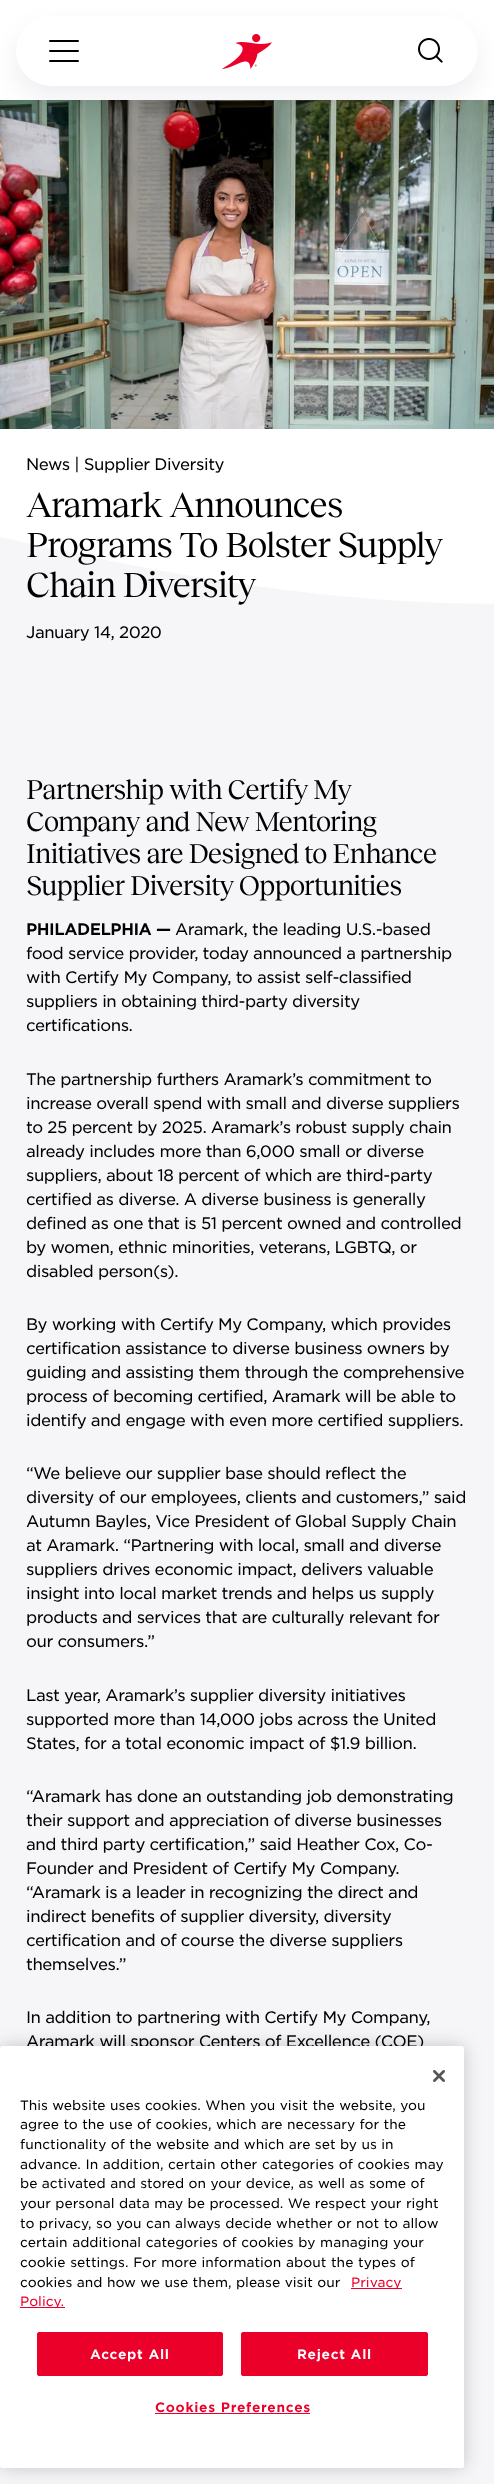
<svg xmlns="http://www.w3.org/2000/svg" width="494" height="2484">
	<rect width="100%" height="100%" fill="#F6F6F9" />
	<rect x="0" y="0" width="494" height="432" fill="#FFFFFF" />
	<image x="0" y="100" width="494" height="329" href="assets/img3.png" />
	<rect x="16" y="28" width="462" height="70" rx="35" fill="#090725" fill-opacity="0.07" filter="blur(12px)" />
	<rect x="16" y="16" width="462" height="70" rx="35" fill="#FFFFFF" />
	<rect x="49" y="40" width="30" height="2" rx="1" fill="#000000" />
	<rect x="49" y="50" width="30" height="2" rx="1" fill="#000000" />
	<rect x="49" y="60" width="30" height="2" rx="1" fill="#000000" />
	<image x="222" y="34" width="50" height="35" href="assets/img1.png" />
	<image x="418" y="38" width="25" height="25" href="assets/img2.png" />
	<path d="M-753 510L-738 504C-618 456-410 433-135 504C137 573 471 649 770 570C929 528 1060 521 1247 538V432H-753Z" fill="#FFFFFF" fill-rule="evenodd" />
	<text x="26" y="470" font-family="'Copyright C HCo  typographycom'" font-size="16" font-weight="300" letter-spacing="-0.48" fill="#000000">News | Supplier Diversity</text>
	<g font-family="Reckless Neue" font-size="36" letter-spacing="-1.1" fill="#000000">
		<text x="26" y="517">Aramark Announces</text>
		<text x="26" y="557">Programs To Bolster Supply</text>
		<text x="26" y="597">Chain Diversity</text>
	</g>
	<text x="26" y="638" font-family="'Copyright C HCo  typographycom'" font-size="16" font-weight="300" letter-spacing="-0.48" fill="#000000">January 14, 2020</text>
	<g font-family="Reckless Neue" font-size="28" letter-spacing="-0.85" fill="#000000">
		<text x="26" y="799">Partnership with Certify My</text>
		<text x="26" y="831">Company and New Mentoring</text>
		<text x="26" y="863">Initiatives are Designed to Enhance</text>
		<text x="26" y="895">Supplier Diversity Opportunities</text>
	</g>
	<text x="26" y="935" font-family="'Copyright C HCo  typographycom'" font-size="16" letter-spacing="-0.48" fill="#000000">PHILADELPHIA —</text>
	<g font-family="'Copyright C HCo  typographycom'" font-size="16" font-weight="300" letter-spacing="-0.48" fill="#000000">
		<text x="175" y="935">Aramark, the leading U.S.-based</text>
		<text x="26" y="959">food service provider, today announced a partnership</text>
		<text x="26" y="983">with Certify My Company, to assist self-classified</text>
		<text x="26" y="1007">suppliers in obtaining third-party diversity</text>
		<text x="26" y="1031">certifications.</text>
		<text x="26" y="1085">The partnership furthers Aramark’s commitment to</text>
		<text x="26" y="1109">increase overall spend with small and diverse suppliers</text>
		<text x="26" y="1133">to 25 percent by 2025. Aramark’s robust supply chain</text>
		<text x="26" y="1157">already includes more than 6,000 small or diverse</text>
		<text x="26" y="1181">suppliers, about 18 percent of which are third-party</text>
		<text x="26" y="1205">certified as diverse. A diverse business is generally</text>
		<text x="26" y="1229">defined as one that is 51 percent owned and controlled</text>
		<text x="26" y="1253">by women, ethnic minorities, veterans, LGBTQ, or</text>
		<text x="26" y="1277">disabled person(s).</text>
		<text x="26" y="1330">By working with Certify My Company, which provides</text>
		<text x="26" y="1354">certification assistance to diverse business owners by</text>
		<text x="26" y="1378">guiding and assisting them through the comprehensive</text>
		<text x="26" y="1402">process of becoming certified, Aramark will be able to</text>
		<text x="26" y="1426">identify and engage with even more certified suppliers.</text>
		<text x="26" y="1479">“We believe our supplier base should reflect the</text>
		<text x="26" y="1503">diversity of our employees, clients and customers,” said</text>
		<text x="26" y="1527">Autumn Bayles, Vice President of Global Supply Chain</text>
		<text x="26" y="1551">at Aramark. “Partnering with local, small and diverse</text>
		<text x="26" y="1575">suppliers drives economic impact, delivers valuable</text>
		<text x="26" y="1599">insight into local market trends and helps us supply</text>
		<text x="26" y="1623">products and services that are culturally relevant for</text>
		<text x="26" y="1647">our consumers.”</text>
		<text x="26" y="1701">Last year, Aramark’s supplier diversity initiatives</text>
		<text x="26" y="1725">supported more than 14,000 jobs across the United</text>
		<text x="26" y="1749">States, for a total economic impact of $1.9 billion.</text>
		<text x="26" y="1802">“Aramark has done an outstanding job demonstrating</text>
		<text x="26" y="1826">their support and appreciation of diverse businesses</text>
		<text x="26" y="1850">and third party certification,” said Heather Cox, Co-</text>
		<text x="26" y="1874">Founder and President of Certify My Company.</text>
		<text x="26" y="1898">“Aramark is a leader in recognizing the direct and</text>
		<text x="26" y="1922">indirect benefits of supplier diversity, diversity</text>
		<text x="26" y="1946">certification and of course the diverse suppliers</text>
		<text x="26" y="1970">themselves.”</text>
		<text x="26" y="2023">In addition to partnering with Certify My Company,</text>
		<text x="26" y="2047">Aramark will sponsor Centers of Excellence (COE)</text>
	</g>
	<rect x="0" y="2046" width="464" height="422" rx="2.5" fill="#000000" fill-opacity="0.2" filter="blur(9px)" />
	<rect x="0" y="2046" width="464" height="422" rx="2.5" fill="#FFFFFF" />
	<image x="433" y="2070" width="12" height="12" href="assets/img4.png" />
	<g font-family="'Copyright C HCo  typographycom'" font-size="13.1" font-weight="300" fill="#000000">
		<text x="20" y="2110" word-spacing="0.25">This website uses cookies. When you visit the website, you</text>
		<text x="20" y="2129" word-spacing="0.25">agree to the use of cookies, which are necessary for the</text>
		<text x="20" y="2149" word-spacing="0.25">functionality of the website and which are set by us in</text>
		<text x="20" y="2169" word-spacing="0.5">advance. In addition, certain other categories of cookies may</text>
		<text x="20" y="2188" word-spacing="0.25">be activated and stored on your device, as well as some of</text>
		<text x="20" y="2208" word-spacing="0.25">your personal data may be processed. We respect your right</text>
		<text x="20" y="2228" word-spacing="0.25">to privacy, so you can always decide whether or not to allow</text>
		<text x="20" y="2247" word-spacing="0.5">certain additional categories of cookies by managing your</text>
		<text x="20" y="2267" word-spacing="0.5">cookie settings. For more information about the types of</text>
		<text x="20" y="2287" word-spacing="0.25">cookies and how we use them, please visit our</text>
	</g>
	<rect x="351" y="2288" width="51" height="1" fill="#EB002A" />
	<text x="351" y="2287" font-family="'Copyright C HCo  typographycom'" font-size="13.1" font-weight="300" fill="#EB002A">Privacy</text>
	<rect x="20" y="2307" width="45" height="1" fill="#EB002A" />
	<text x="20" y="2306" font-family="'Copyright C HCo  typographycom'" font-size="13.1" font-weight="300" fill="#EB002A">Policy.</text>
	<rect x="37.5" y="2332.5" width="185" height="43" rx="1.5" fill="#EB002A" stroke="#EB002A" />
	<text x="90" y="2359" font-family="'Copyright C HCo  typographycom'" font-size="13.1" letter-spacing="0.7" fill="#FFFFFF">Accept All</text>
	<rect x="241.5" y="2332.5" width="186" height="43" rx="1.5" fill="#EB002A" stroke="#EB002A" />
	<text x="297" y="2359" font-family="'Copyright C HCo  typographycom'" font-size="13.1" letter-spacing="0.7" fill="#FFFFFF">Reject All</text>
	<text x="155" y="2412" font-family="'Copyright C HCo  typographycom'" font-size="13.1" letter-spacing="0.7" fill="#EB002A">Cookies Preferences</text>
	<rect x="155" y="2413" width="155" height="1" fill="#EB002A" />
</svg>
